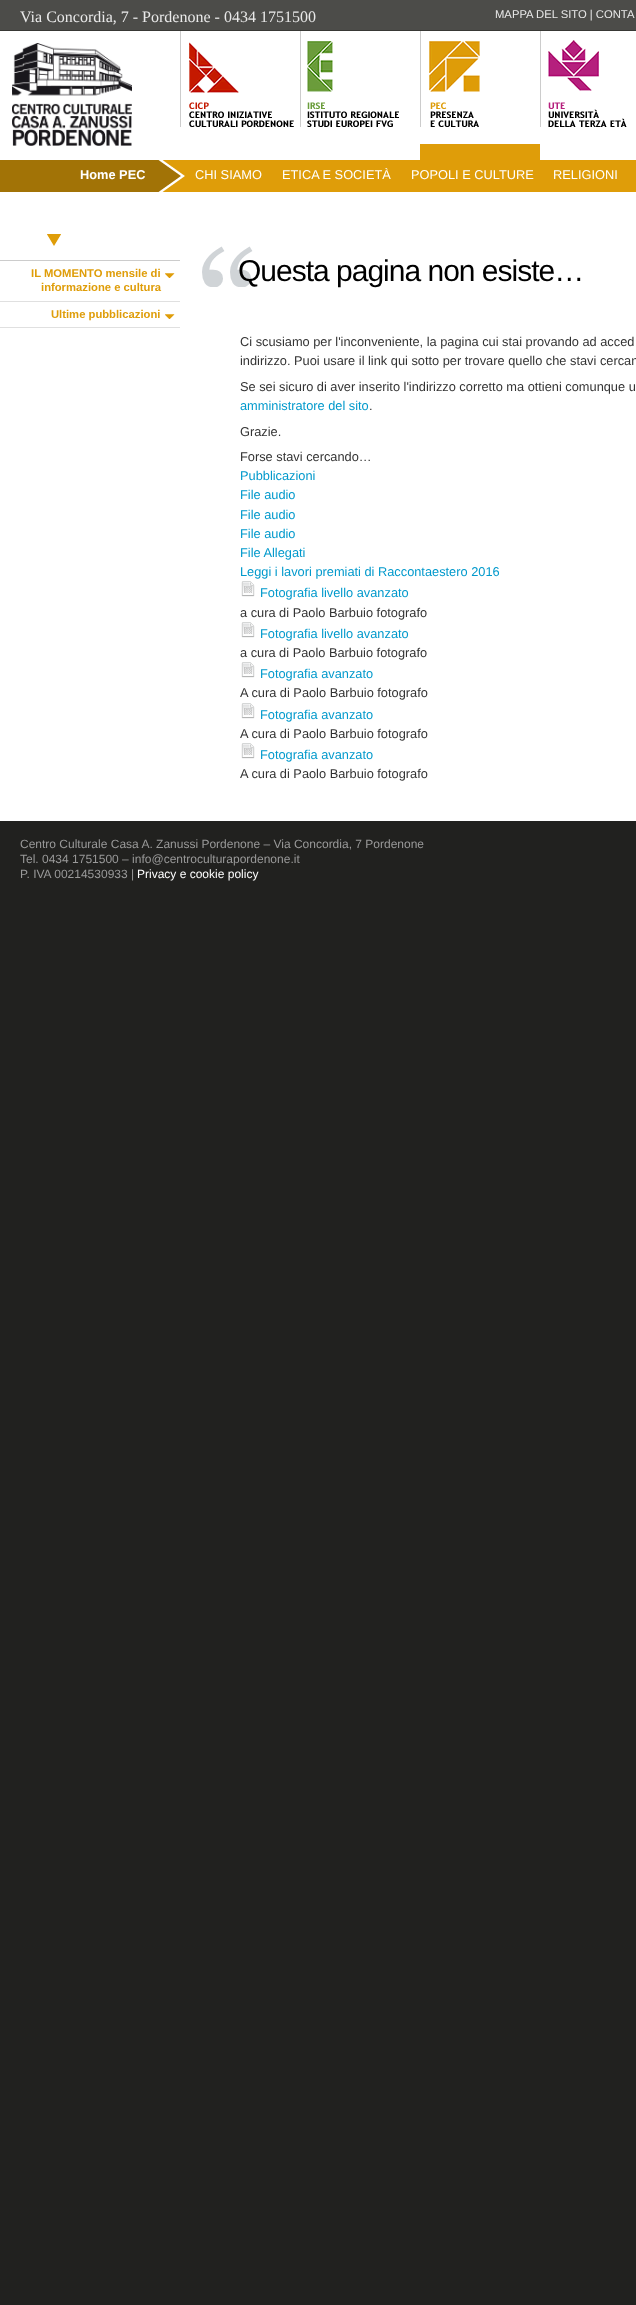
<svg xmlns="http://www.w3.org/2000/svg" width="636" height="2305">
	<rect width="100%" height="100%" fill="#21211F" />
	<rect x="0" y="31" width="636" height="790" fill="#FFFFFF" />
	<rect x="0" y="0" width="636" height="30" fill="#4C4C49" />
	<rect x="0" y="30" width="636" height="1" fill="#383835" />
	<text x="20" y="22" font-family="Liberation Serif" font-size="16" fill="#E9E9E9">Via Concordia, 7 - Pordenone - 0434 1751500</text>
	<text x="495" y="18" font-family="Liberation Sans" font-size="11.25" fill="#E9E9E9">MAPPA DEL SITO | CONTA</text>
	<image x="12" y="43" width="120" height="103" href="assets/img1.png" />
	<rect x="180" y="31" width="1" height="96" fill="#CCCCCC" />
	<image x="189" y="42" width="105" height="85" href="assets/img2.png" />
	<rect x="300" y="31" width="1" height="96" fill="#CCCCCC" />
	<image x="307" y="41" width="92" height="86" href="assets/img3.png" />
	<rect x="420" y="144" width="120" height="16" fill="#DF9D09" />
	<rect x="420" y="31" width="1" height="96" fill="#CCCCCC" />
	<image x="429" y="41" width="51" height="86" href="assets/img4.png" />
	<rect x="540" y="31" width="1" height="96" fill="#CCCCCC" />
	<image x="548" y="40" width="79" height="87" href="assets/img5.png" />
	<rect x="185" y="160" width="451" height="32" fill="#DF9D09" />
	<rect x="0" y="160" width="158" height="32" fill="#A27306" />
	<image x="158" y="160" width="27" height="32" href="assets/img6.png" />
	<text x="80" y="179" font-family="Liberation Sans" font-size="12.8" font-weight="700" fill="#FFFFFF">Home PEC</text>
	<g font-family="Liberation Sans" font-size="12.8" fill="#FFFFFF">
		<text x="195" y="179">CHI SIAMO</text>
		<text x="282" y="179">ETICA E SOCIETÀ</text>
		<text x="411" y="179">POPOLI E CULTURE</text>
		<text x="553" y="179">RELIGIONI</text>
	</g>
	<image x="47" y="234" width="14" height="12" href="assets/img7.png" />
	<rect x="0" y="260" width="180" height="1" fill="#CCCCCC" />
	<rect x="0" y="301" width="180" height="1" fill="#E0E0E0" />
	<image x="165" y="273" width="10" height="5" href="assets/img8.png" />
	<g font-family="Liberation Sans" font-size="11.25" font-weight="700" fill="#DF9D09">
		<text x="31" y="277">IL MOMENTO mensile di</text>
		<text x="41" y="291">informazione e cultura</text>
	</g>
	<rect x="0" y="327" width="180" height="1" fill="#E0E0E0" />
	<image x="165" y="314" width="10" height="5" href="assets/img8.png" />
	<text x="51" y="318" font-family="Liberation Sans" font-size="11.25" font-weight="700" fill="#DF9D09">Ultime pubblicazioni</text>
	<image x="202" y="246" width="51" height="41" href="assets/img9.png" />
	<text x="238" y="281" font-family="Liberation Sans" font-size="30" letter-spacing="-1" fill="#000000">Questa pagina non esiste…</text>
	<g font-family="Liberation Sans" font-size="12.8" fill="#333333">
		<text x="240" y="346">Ci scusiamo per l'inconveniente, la pagina cui stai provando ad acced</text>
		<text x="240" y="365">indirizzo. Puoi usare il link qui sotto per trovare quello che stavi cercan</text>
		<text x="240" y="391">Se sei sicuro di aver inserito l'indirizzo corretto ma ottieni comunque u</text>
	</g>
	<text x="240" y="410" font-family="Liberation Sans" font-size="12.8" fill="#0099CC">amministratore del sito</text>
	<g font-family="Liberation Sans" font-size="12.8" fill="#333333">
		<text x="369" y="410">.</text>
		<text x="240" y="436">Grazie.</text>
		<text x="240" y="461">Forse stavi cercando…</text>
	</g>
	<g font-family="Liberation Sans" font-size="12.8" fill="#0099CC">
		<text x="240" y="480">Pubblicazioni</text>
		<text x="240" y="499">File audio</text>
		<text x="240" y="519">File audio</text>
		<text x="240" y="538">File audio</text>
		<text x="240" y="557">File Allegati</text>
		<text x="240" y="576">Leggi i lavori premiati di Raccontaestero 2016</text>
	</g>
	<image x="241" y="581" width="14" height="16" href="assets/img10.png" />
	<text x="260" y="597" font-family="Liberation Sans" font-size="12.8" fill="#0099CC">Fotografia livello avanzato</text>
	<text x="240" y="617" font-family="Liberation Sans" font-size="12.8" fill="#333333">a cura di Paolo Barbuio fotografo</text>
	<image x="241" y="622" width="14" height="16" href="assets/img10.png" />
	<text x="260" y="638" font-family="Liberation Sans" font-size="12.8" fill="#0099CC">Fotografia livello avanzato</text>
	<text x="240" y="657" font-family="Liberation Sans" font-size="12.8" fill="#333333">a cura di Paolo Barbuio fotografo</text>
	<image x="241" y="662" width="14" height="16" href="assets/img10.png" />
	<text x="260" y="678" font-family="Liberation Sans" font-size="12.8" fill="#0099CC">Fotografia avanzato</text>
	<text x="240" y="697" font-family="Liberation Sans" font-size="12.8" fill="#333333">A cura di Paolo Barbuio fotografo</text>
	<image x="241" y="703" width="14" height="16" href="assets/img10.png" />
	<text x="260" y="719" font-family="Liberation Sans" font-size="12.8" fill="#0099CC">Fotografia avanzato</text>
	<text x="240" y="738" font-family="Liberation Sans" font-size="12.8" fill="#333333">A cura di Paolo Barbuio fotografo</text>
	<image x="241" y="743" width="14" height="16" href="assets/img10.png" />
	<text x="260" y="759" font-family="Liberation Sans" font-size="12.8" fill="#0099CC">Fotografia avanzato</text>
	<text x="240" y="778" font-family="Liberation Sans" font-size="12.8" fill="#333333">A cura di Paolo Barbuio fotografo</text>
	<g font-family="Liberation Sans" font-size="12" fill="#999999">
		<text x="20" y="848">Centro Culturale Casa A. Zanussi Pordenone – Via Concordia, 7 Pordenone</text>
		<text x="20" y="863">Tel. 0434 1751500 – info@centroculturapordenone.it</text>
		<text x="20" y="878">P. IVA 00214530933 |</text>
	</g>
	<text x="137" y="878" font-family="Liberation Sans" font-size="12" fill="#FFFFFF">Privacy e cookie policy</text>
</svg>
